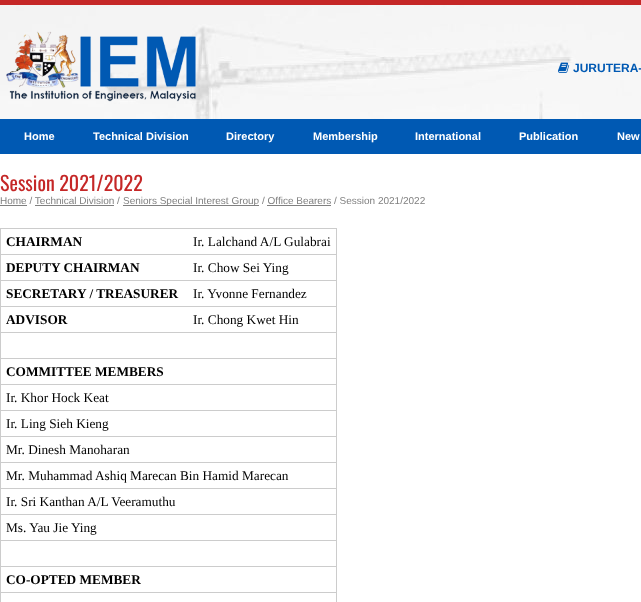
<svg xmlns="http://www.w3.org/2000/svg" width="641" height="602">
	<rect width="100%" height="100%" fill="#FFFFFF" />
	<image x="0" y="5" width="641" height="114" href="assets/img1.png" />
	<rect x="0" y="0" width="641" height="5" fill="#C52727" />
	<image x="6" y="31" width="190" height="71" href="assets/img2.png" />
	<image x="558" y="62" width="12" height="11" href="assets/img3.png" />
	<text x="573" y="72" font-family="Liberation Sans" font-size="12" font-weight="700" fill="#0059B3">JURUTERA-</text>
	<rect x="0" y="119" width="641" height="35" fill="#0059B3" />
	<g font-family="Liberation Sans" font-size="11" font-weight="700" fill="#FFFFFF">
		<text x="24" y="140">Home</text>
		<text x="93" y="140">Technical Division</text>
		<text x="226" y="140">Directory</text>
		<text x="313" y="140">Membership</text>
		<text x="415" y="140">International</text>
		<text x="519" y="140">Publication</text>
		<text x="617" y="140">New</text>
	</g>
	<text x="0" y="191" font-family="Oswald" font-size="20" fill="#C52727">Session 2021/2022</text>
	<text x="0" y="204" font-family="Liberation Sans" font-size="10" fill="#808080">Home / Technical Division /</text>
	<rect x="0" y="205" width="27" height="1" fill="#808080" />
	<rect x="123" y="205" width="136" height="1" fill="#808080" />
	<text x="123" y="204" font-family="Liberation Sans" font-size="10" fill="#808080">Seniors Special Interest Group / Office Bearers / Session 2021/2022</text>
	<rect x="35" y="205" width="79" height="1" fill="#808080" />
	<rect x="267" y="205" width="64" height="1" fill="#808080" />
	<rect x="0" y="228" width="337" height="374" fill="#CCCCCC" />
	<rect x="1" y="229" width="335" height="25" fill="#FFFFFF" />
	<text x="6" y="246" font-family="Liberation Serif" font-size="13.3" font-weight="700" fill="#000000">CHAIRMAN</text>
	<text x="193" y="246" font-family="Liberation Serif" font-size="13.3" fill="#000000">Ir. Lalchand A/L Gulabrai</text>
	<rect x="1" y="255" width="335" height="25" fill="#FFFFFF" />
	<text x="6" y="272" font-family="Liberation Serif" font-size="13.3" font-weight="700" fill="#000000">DEPUTY CHAIRMAN</text>
	<text x="193" y="272" font-family="Liberation Serif" font-size="13.3" fill="#000000">Ir. Chow Sei Ying</text>
	<rect x="1" y="281" width="335" height="25" fill="#FFFFFF" />
	<text x="6" y="298" font-family="Liberation Serif" font-size="13.3" font-weight="700" fill="#000000">SECRETARY / TREASURER</text>
	<text x="193" y="298" font-family="Liberation Serif" font-size="13.3" fill="#000000">Ir. Yvonne Fernandez</text>
	<rect x="1" y="307" width="335" height="25" fill="#FFFFFF" />
	<text x="6" y="324" font-family="Liberation Serif" font-size="13.3" font-weight="700" fill="#000000">ADVISOR</text>
	<text x="193" y="324" font-family="Liberation Serif" font-size="13.3" fill="#000000">Ir. Chong Kwet Hin</text>
	<rect x="1" y="333" width="335" height="25" fill="#FFFFFF" />
	<rect x="1" y="359" width="335" height="25" fill="#FFFFFF" />
	<text x="6" y="376" font-family="Liberation Serif" font-size="13.3" font-weight="700" fill="#000000">COMMITTEE MEMBERS</text>
	<rect x="1" y="385" width="335" height="25" fill="#FFFFFF" />
	<text x="6" y="402" font-family="Liberation Serif" font-size="13.3" fill="#000000">Ir. Khor Hock Keat</text>
	<rect x="1" y="411" width="335" height="25" fill="#FFFFFF" />
	<text x="6" y="428" font-family="Liberation Serif" font-size="13.3" fill="#000000">Ir. Ling Sieh Kieng</text>
	<rect x="1" y="437" width="335" height="25" fill="#FFFFFF" />
	<text x="6" y="454" font-family="Liberation Serif" font-size="13.3" fill="#000000">Mr. Dinesh Manoharan</text>
	<rect x="1" y="463" width="335" height="25" fill="#FFFFFF" />
	<text x="6" y="480" font-family="Liberation Serif" font-size="13.3" fill="#000000">Mr. Muhammad Ashiq Marecan Bin Hamid Marecan</text>
	<rect x="1" y="489" width="335" height="25" fill="#FFFFFF" />
	<text x="6" y="506" font-family="Liberation Serif" font-size="13.3" fill="#000000">Ir. Sri Kanthan A/L Veeramuthu</text>
	<rect x="1" y="515" width="335" height="25" fill="#FFFFFF" />
	<text x="6" y="532" font-family="Liberation Serif" font-size="13.3" fill="#000000">Ms. Yau Jie Ying</text>
	<rect x="1" y="541" width="335" height="25" fill="#FFFFFF" />
	<rect x="1" y="567" width="335" height="25" fill="#FFFFFF" />
	<text x="6" y="584" font-family="Liberation Serif" font-size="13.3" font-weight="700" fill="#000000">CO-OPTED MEMBER</text>
	<rect x="1" y="593" width="335" height="9" fill="#FFFFFF" />
</svg>
